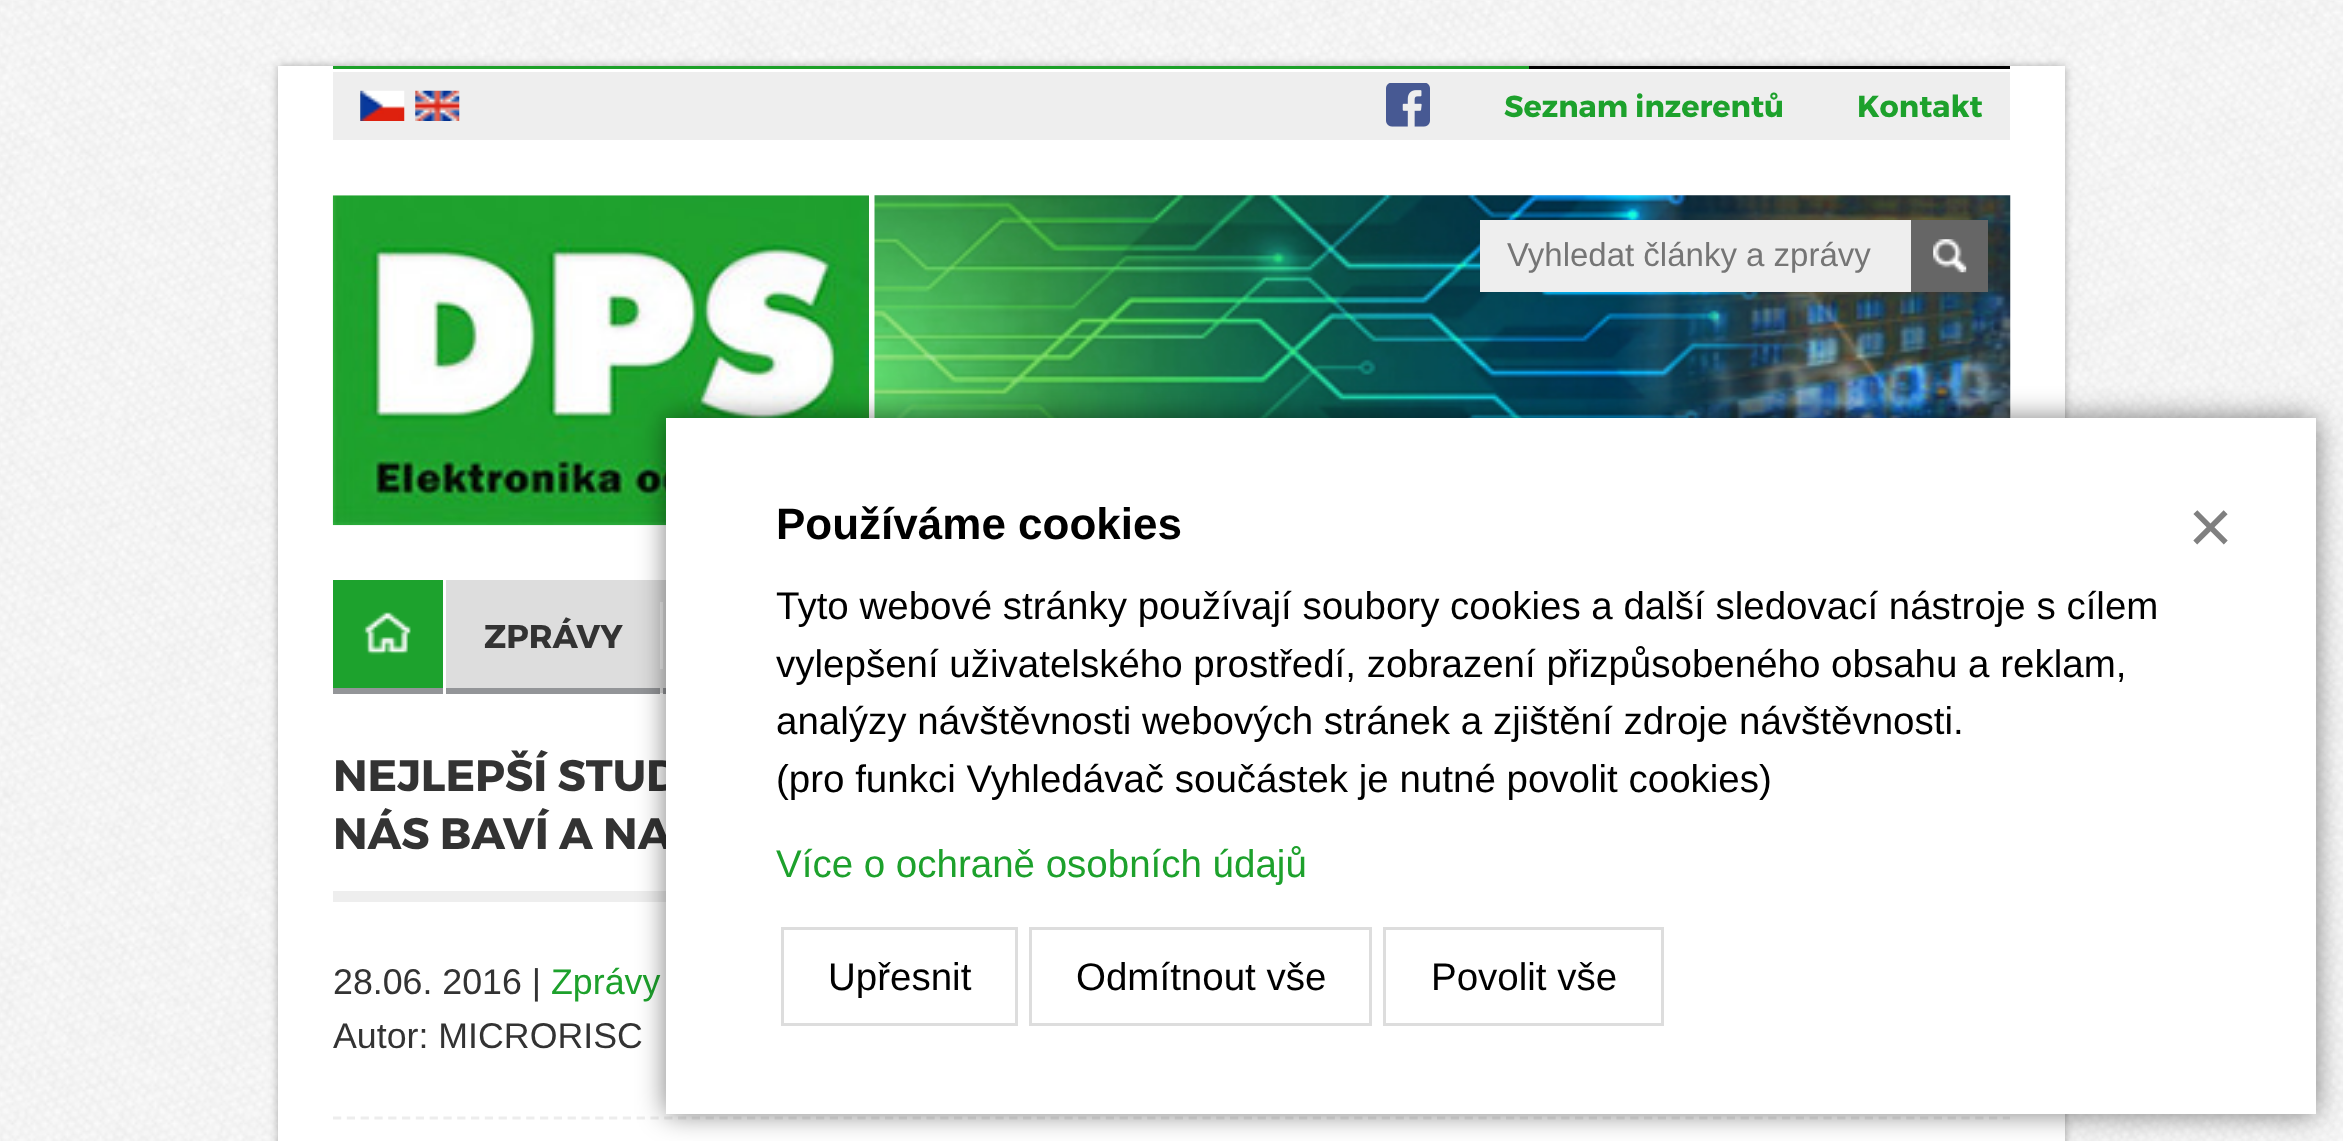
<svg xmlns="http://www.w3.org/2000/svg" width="2343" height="1141">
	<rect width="100%" height="100%" fill="#FFFFFF" />
	<image x="0" y="0" width="2343" height="1141" href="assets/img1.png" />
	<rect x="278" y="66" width="1787" height="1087" fill="#000000" fill-opacity="0.3" filter="blur(4px)" />
	<rect x="278" y="66" width="1787" height="1075" fill="#FFFFFF" />
	<rect x="333" y="72" width="1677" height="68" fill="#EEEEEE" />
	<rect x="333" y="66" width="1196" height="3" fill="#1CA028" />
	<rect x="1529" y="66" width="481" height="3" fill="#000000" />
	<image x="360" y="90" width="45" height="31" href="assets/img2.png" />
	<image x="415" y="90" width="45" height="31" href="assets/img3.png" />
	<image x="1386" y="83" width="44" height="44" href="assets/img4.png" />
	<g font-family="Montserrat" font-size="30.25" font-weight="700" fill="#1DA12C">
		<text x="1504" y="117">Seznam inzerentů</text>
		<text x="1857" y="117">Kontakt</text>
	</g>
	<image x="874" y="195" width="1137" height="223" href="assets/img5.png" />
	<image x="332" y="195" width="537" height="331" href="assets/img6.png" />
	<rect x="446" y="580" width="220" height="113" fill="#DDDDDD" />
	<rect x="1480" y="220" width="431" height="72" fill="#EEEEEE" />
	<text x="1507" y="266" font-family="Liberation Sans" font-size="33" fill="#757575">Vyhledat články a zprávy</text>
	<rect x="1911" y="220" width="77" height="72" fill="#666666" />
	<image x="1933" y="239" width="34" height="34" href="assets/img7.png" />
	<rect x="333" y="580" width="110" height="108" fill="#1DA22D" />
	<image x="363" y="612" width="48" height="43" href="assets/img8.png" />
	<rect x="333" y="688" width="110" height="6" fill="#939598" />
	<rect x="660" y="602" width="3" height="67" fill="#EEEEEE" />
	<rect x="446" y="688" width="214" height="6" fill="#939598" />
	<text x="484" y="648" font-family="Montserrat" font-size="33" font-weight="700" fill="#333333">ZPRÁVY</text>
	<rect x="663" y="688" width="3" height="6" fill="#939598" />
	<rect x="333" y="891" width="333" height="11" fill="#EEEEEE" />
	<g font-family="Montserrat" font-size="44" font-weight="700" fill="#333333">
		<text x="333" y="791">NEJLEPŠÍ STUD</text>
		<text x="333" y="849">NÁS BAVÍ A NA</text>
	</g>
	<path d="M333 1118H2010" fill="none" stroke="#EDEDED" stroke-width="2.8" stroke-dasharray="8.25 5.55" />
	<text x="333" y="994" font-family="Liberation Sans" font-size="35.75" fill="#333333">28.06. 2016 |</text>
	<text x="551" y="994" font-family="Liberation Sans" font-size="35.75" fill="#1DA12C">Zprávy</text>
	<text x="333" y="1048" font-family="Liberation Sans" font-size="35.75" fill="#333333">Autor: MICRORISC</text>
	<rect x="666" y="418" width="1650" height="696" fill="#000000" fill-opacity="0.5" filter="blur(14px)" />
	<rect x="666" y="418" width="1650" height="696" fill="#FFFFFF" />
	<text x="776" y="539" font-family="Liberation Sans" font-size="44" font-weight="700" fill="#000000">Používáme cookies</text>
	<g font-family="Liberation Sans" font-size="38.5" fill="#000000">
		<text x="776" y="619">Tyto webové stránky používají soubory cookies a další sledovací nástroje s cílem</text>
		<text x="776" y="677">vylepšení uživatelského prostředí, zobrazení přizpůsobeného obsahu a reklam,</text>
		<text x="776" y="734">analýzy návštěvnosti webových stránek a zjištění zdroje návštěvnosti.</text>
		<text x="776" y="792">(pro funkci Vyhledávač součástek je nutné povolit cookies)</text>
	</g>
	<text x="776" y="877" font-family="Liberation Sans" font-size="38.5" fill="#1DA12C">Více o ochraně osobních údajů</text>
	<rect x="782.5" y="928.5" width="234" height="96" fill="none" stroke="#DDDDDD" stroke-width="3" />
	<text x="828" y="990" font-family="Liberation Sans" font-size="38.5" fill="#000000">Upřesnit</text>
	<rect x="1030.5" y="928.5" width="340" height="96" fill="none" stroke="#DDDDDD" stroke-width="3" />
	<text x="1076" y="990" font-family="Liberation Sans" font-size="38.5" fill="#000000">Odmítnout vše</text>
	<rect x="1384.5" y="928.5" width="278" height="96" fill="none" stroke="#DDDDDD" stroke-width="3" />
	<text x="1431" y="990" font-family="Liberation Sans" font-size="38.5" fill="#000000">Povolit vše</text>
	<text x="2188" y="553" font-family="Liberation Sans" font-size="77" fill="#808080">×</text>
</svg>
